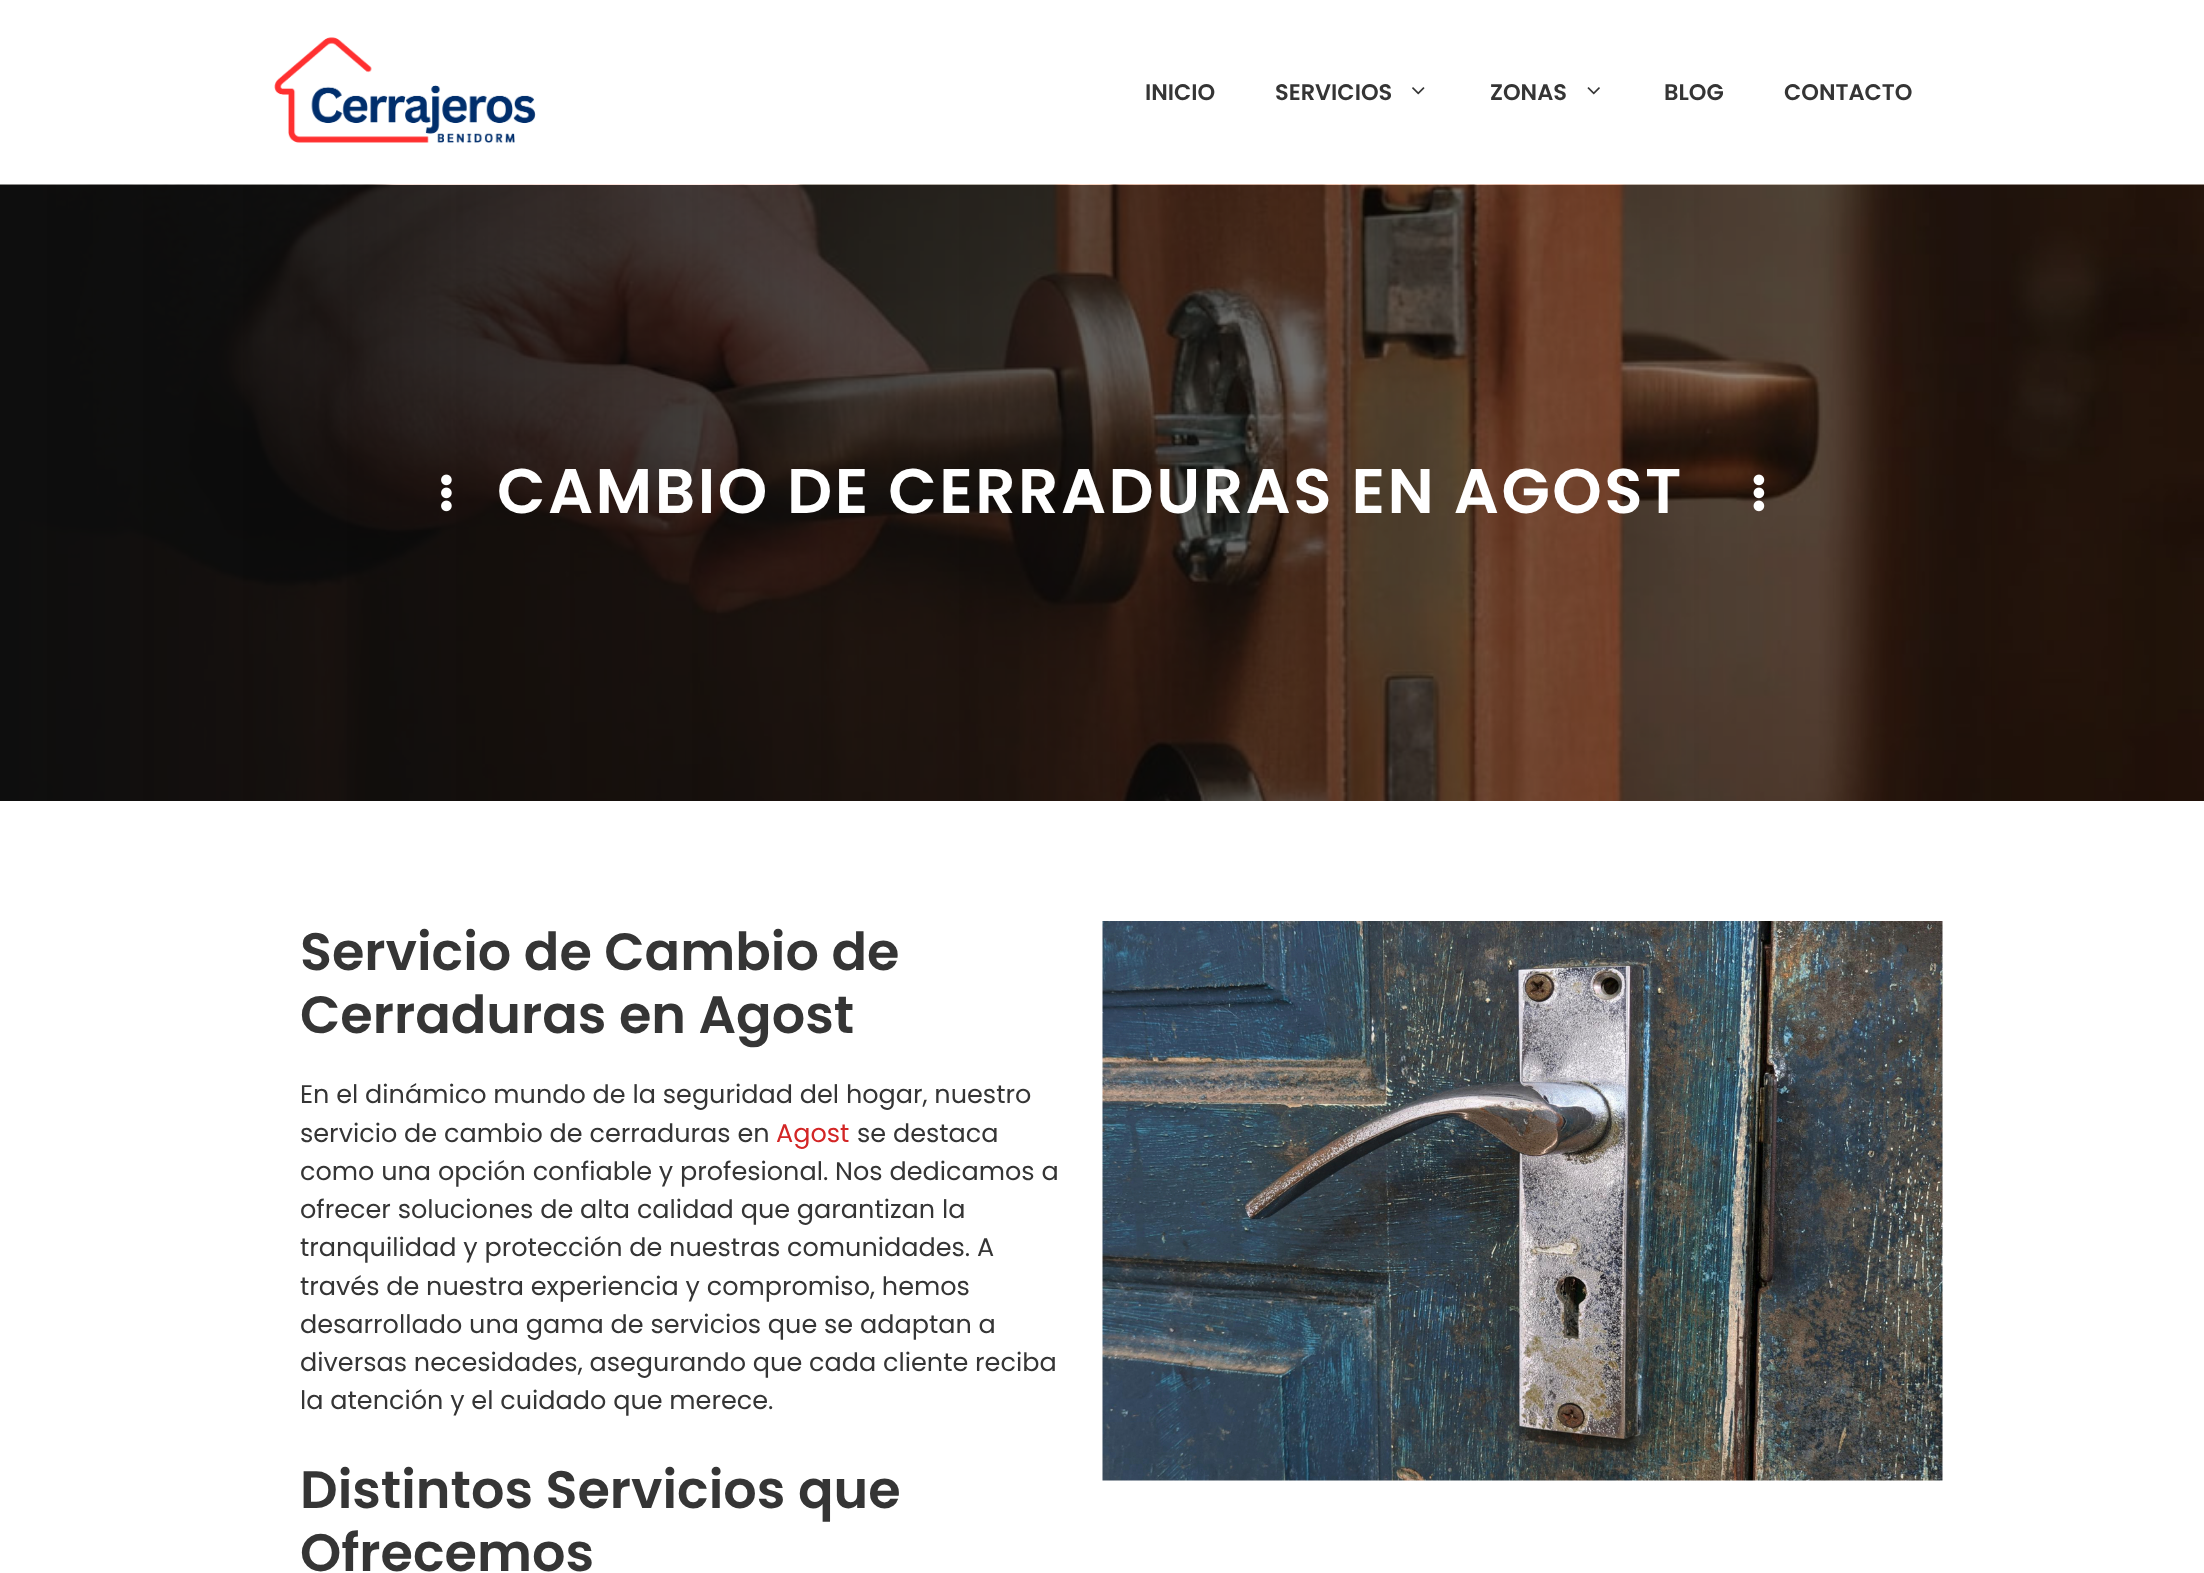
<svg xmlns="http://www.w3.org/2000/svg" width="2204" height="1573">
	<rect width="100%" height="100%" fill="#FFFFFF" />
	<image x="274" y="37" width="262" height="106" href="assets/img1.png" />
	<g font-family="Poppins" font-size="22.5" font-weight="600" fill="#353535">
		<text x="1145" y="100">INICIO</text>
		<text x="1275" y="100">SERVICIOS</text>
	</g>
	<image x="1412" y="87" width="13" height="8" href="assets/img2.png" />
	<text x="1490" y="100" font-family="Poppins" font-size="22.5" font-weight="600" fill="#353535">ZONAS</text>
	<image x="1587" y="87" width="13" height="8" href="assets/img3.png" />
	<g font-family="Poppins" font-size="22.5" font-weight="600" fill="#353535">
		<text x="1664" y="100">BLOG</text>
		<text x="1784" y="100">CONTACTO</text>
	</g>
	<image x="0" y="184" width="2204" height="617" href="assets/img4.png" />
	<image x="441" y="474" width="11" height="38" href="assets/img5.png" />
	<text x="497" y="513" font-family="Poppins" font-size="63" font-weight="600" letter-spacing="2.5" fill="#FFFFFF">CAMBIO DE CERRADURAS EN AGOST</text>
	<image x="1753" y="474" width="12" height="38" href="assets/img6.png" />
	<g font-family="Poppins" font-size="52.5" font-weight="600" fill="#353535">
		<text x="300" y="970">Servicio de Cambio de</text>
		<text x="300" y="1033">Cerraduras en Agost</text>
	</g>
	<g font-family="Poppins" font-size="25.5" fill="#353535">
		<text x="300" y="1103">En el dinámico mundo de la seguridad del hogar, nuestro</text>
		<text x="300" y="1142">servicio de cambio de cerraduras en</text>
	</g>
	<text x="776" y="1142" font-family="Poppins" font-size="25.5" fill="#D32525">Agost</text>
	<g font-family="Poppins" font-size="25.5" fill="#353535">
		<text x="857" y="1142">se destaca</text>
		<text x="300" y="1180">como una opción confiable y profesional. Nos dedicamos a</text>
		<text x="300" y="1218">ofrecer soluciones de alta calidad que garantizan la</text>
		<text x="300" y="1256">tranquilidad y protección de nuestras comunidades. A</text>
		<text x="300" y="1295">través de nuestra experiencia y compromiso, hemos</text>
		<text x="300" y="1333">desarrollado una gama de servicios que se adaptan a</text>
		<text x="300" y="1371">diversas necesidades, asegurando que cada cliente reciba</text>
		<text x="300" y="1409">la atención y el cuidado que merece.</text>
	</g>
	<g font-family="Poppins" font-size="52.5" font-weight="600" fill="#353535">
		<text x="300" y="1508">Distintos Servicios que</text>
		<text x="300" y="1571">Ofrecemos</text>
	</g>
	<image x="1102" y="921" width="841" height="560" href="assets/img7.png" />
</svg>
